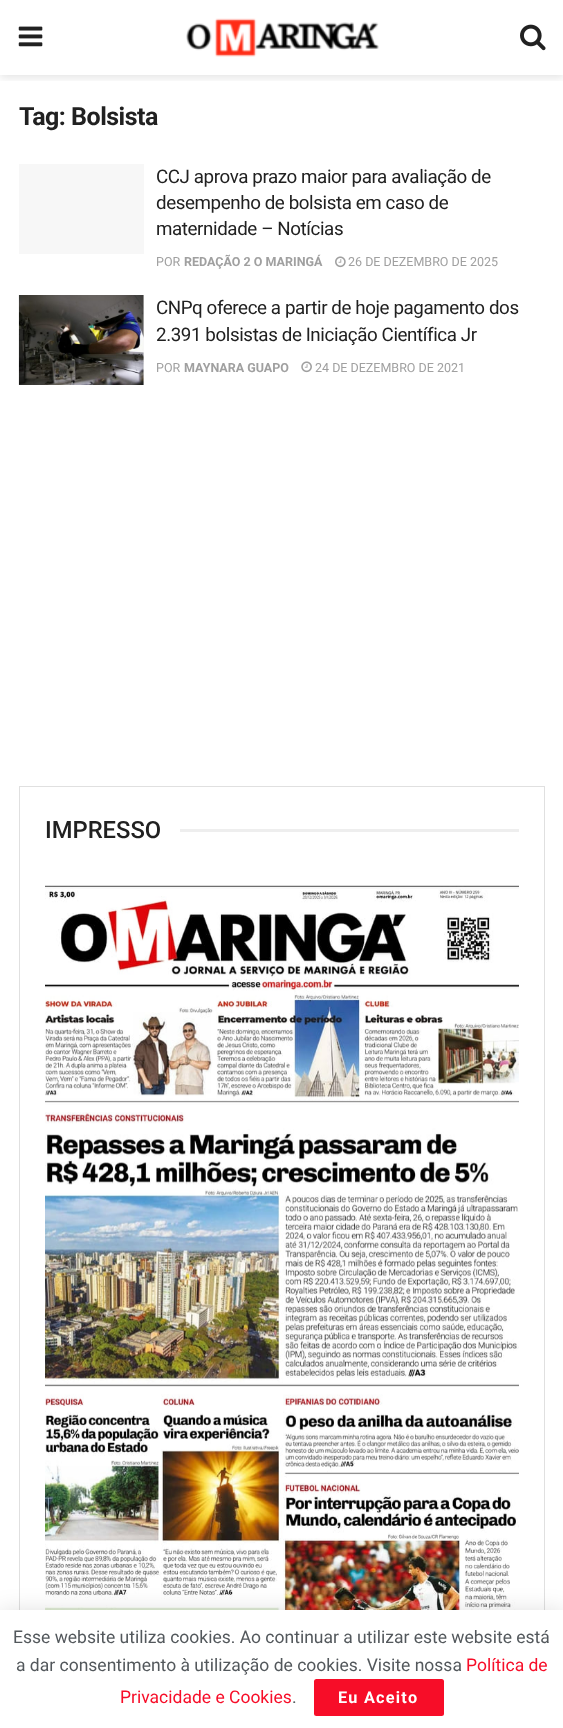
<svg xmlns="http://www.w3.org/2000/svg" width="563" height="1728">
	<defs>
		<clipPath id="clip1"><rect x="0" y="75" width="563" height="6" /></clipPath>
	</defs>
	<rect width="100%" height="100%" fill="#FFFFFF" />
	<g clip-path="url(#clip1)">
		<rect x="0" y="3" width="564" height="75" fill="#000000" fill-opacity="0.1" filter="blur(4px)" />
	</g>
	<image x="18" y="26" width="25" height="21" href="assets/img1.png" />
	<image x="186" y="18" width="193" height="39" href="assets/img2.png" />
	<image x="520" y="24" width="26" height="27" href="assets/img3.png" />
	<text x="19" y="125" font-family="Roboto" font-size="25" font-weight="700" letter-spacing="-0.5" fill="#212121">Tag: Bolsista</text>
	<rect x="19" y="164" width="125" height="90" fill="#F7F7F7" />
	<g font-family="Roboto" font-size="18.75" letter-spacing="-0.4" fill="#212121">
		<text x="156" y="183">CCJ aprova prazo maior para avaliação de</text>
		<text x="156" y="209">desempenho de bolsista em caso de</text>
		<text x="156" y="235">maternidade – Notícias</text>
	</g>
	<text x="156" y="266" font-family="Roboto" font-size="12.5" fill="#A0A0A0">POR</text>
	<text x="184" y="266" font-family="Roboto" font-size="12.5" font-weight="700" fill="#A0A0A0">REDAÇÃO 2 O MARINGÁ</text>
	<image x="335" y="256" width="11" height="12" href="assets/img4.png" />
	<text x="348" y="266" font-family="Roboto" font-size="12.5" fill="#A0A0A0">26 DE DEZEMBRO DE 2025</text>
	<rect x="143" y="295" width="1" height="90" fill="#F7F7F7" />
	<image x="18" y="295" width="126" height="90" href="assets/img5.png" />
	<g font-family="Roboto" font-size="18.75" letter-spacing="-0.4" fill="#212121">
		<text x="156" y="314">CNPq oferece a partir de hoje pagamento dos</text>
		<text x="156" y="341">2.391 bolsistas de Iniciação Científica Jr</text>
	</g>
	<text x="156" y="372" font-family="Roboto" font-size="12.5" fill="#A0A0A0">POR</text>
	<text x="184" y="372" font-family="Roboto" font-size="12.5" font-weight="700" fill="#A0A0A0">MAYNARA GUAPO</text>
	<image x="301" y="361" width="11" height="12" href="assets/img6.png" />
	<text x="315" y="372" font-family="Roboto" font-size="12.5" fill="#A0A0A0">24 DE DEZEMBRO DE 2021</text>
	<rect x="19.5" y="786.5" width="525" height="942" fill="none" stroke="#E0E0E0" />
	<text x="45" y="838" font-family="Roboto" font-size="23.75" font-weight="500" fill="#212121">IMPRESSO</text>
	<rect x="180" y="829" width="339" height="3" fill="#EEEEEE" />
	<image x="45" y="885" width="474" height="725" href="assets/img7.png" />
	<rect x="0" y="1613" width="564" height="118" fill="#000000" fill-opacity="0.15" filter="blur(12.5px)" />
	<rect x="0" y="1610" width="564" height="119" fill="#000000" fill-opacity="0.2" filter="blur(0.5px)" />
	<rect x="0" y="1610" width="563" height="118" fill="#FFFFFF" />
	<g font-family="Roboto" font-size="17.5" fill="#53585C">
		<text x="13" y="1643">Esse website utiliza cookies. Ao continuar a utilizar este website está</text>
		<text x="16" y="1671">a dar consentimento à utilização de cookies. Visite nossa</text>
	</g>
	<g font-family="Roboto" font-size="17.5" fill="#F70D28">
		<text x="466" y="1671">Política de</text>
		<text x="120" y="1703">Privacidade e Cookies</text>
	</g>
	<text x="292" y="1703" font-family="Roboto" font-size="17.5" fill="#53585C">.</text>
	<rect x="314" y="1679" width="130" height="37" rx="2.5" fill="#F70D28" />
	<text x="338" y="1703" font-family="Roboto" font-size="16.25" font-weight="700" letter-spacing="1.25" fill="#FFFFFF">Eu Aceito</text>
</svg>
